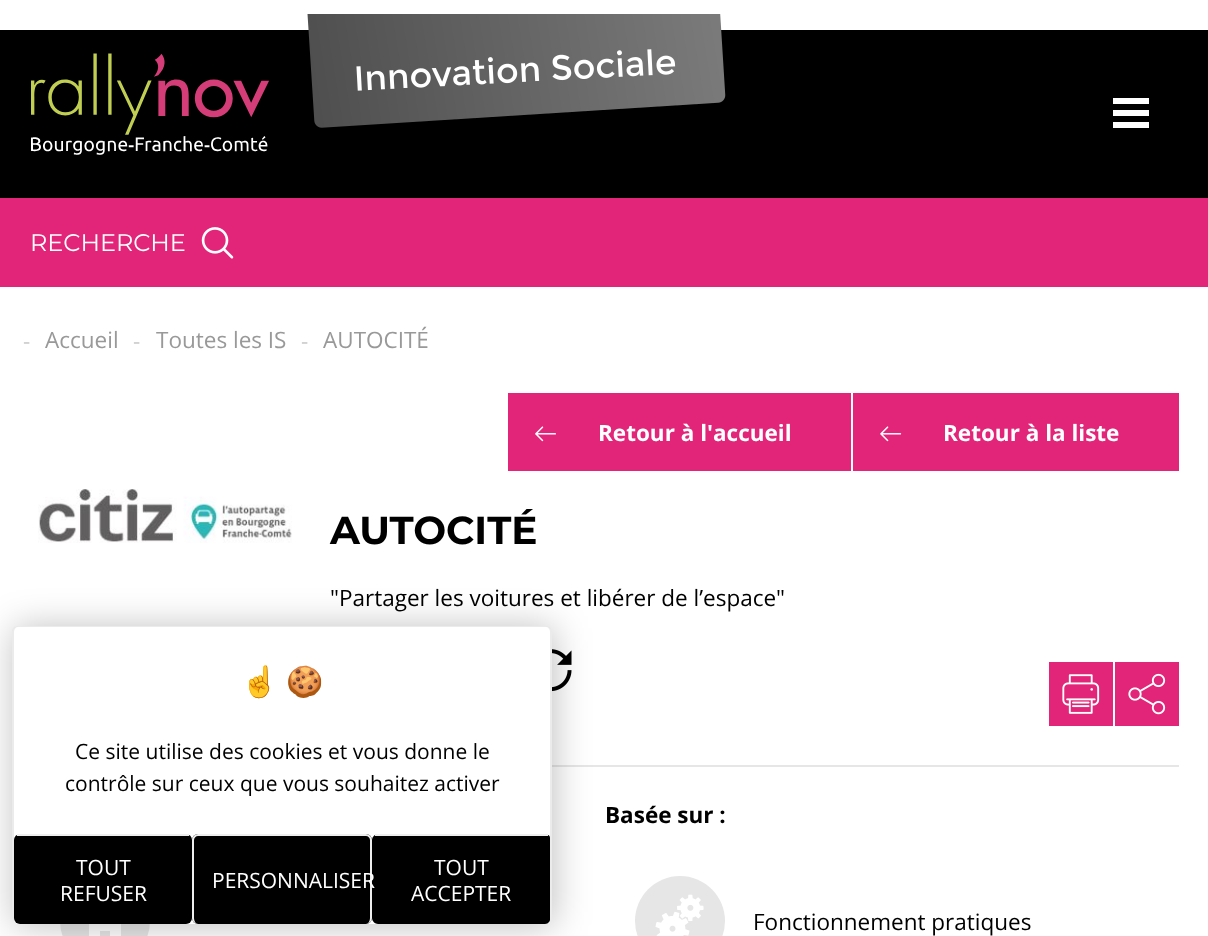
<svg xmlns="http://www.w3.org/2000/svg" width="1208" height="936">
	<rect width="100%" height="100%" fill="#FFFFFF" />
	<rect x="0" y="30" width="1208" height="168" fill="#000000" />
	<image x="31" y="53" width="238" height="102" href="assets/img1.png" />
	<image x="307" y="14" width="419" height="114" href="assets/img2.png" />
	<rect x="1113" y="98" width="36" height="6" fill="#FFFFFF" />
	<rect x="1113" y="110" width="36" height="6" fill="#FFFFFF" />
	<rect x="1113" y="122" width="36" height="6" fill="#FFFFFF" />
	<rect x="0" y="198" width="1208" height="89" fill="#E22579" />
	<text x="30" y="251" font-family="Montserrat" font-size="24" fill="#FFFFFF">RECHERCHE</text>
	<image x="201" y="227" width="33" height="32" href="assets/img3.png" />
	<text x="23" y="349" font-family="Open Sans" font-size="22.5" fill="#CCCCCC">-</text>
	<text x="45" y="348" font-family="Open Sans" font-size="22.5" fill="#999999">Accueil</text>
	<text x="133" y="349" font-family="Open Sans" font-size="22.5" fill="#CCCCCC">-</text>
	<text x="156" y="348" font-family="Open Sans" font-size="22.5" fill="#999999">Toutes les IS</text>
	<text x="301" y="349" font-family="Open Sans" font-size="22.5" fill="#CCCCCC">-</text>
	<text x="323" y="348" font-family="Open Sans" font-size="22.5" fill="#999999">AUTOCITÉ</text>
	<rect x="508" y="393" width="343" height="78" fill="#E22579" />
	<image x="535" y="426" width="21" height="16" href="assets/img4.png" />
	<text x="598" y="441" font-family="Open Sans" font-size="22.5" font-weight="700" fill="#FFFFFF">Retour à l'accueil</text>
	<rect x="853" y="393" width="326" height="78" fill="#E22579" />
	<image x="880" y="426" width="22" height="16" href="assets/img5.png" />
	<text x="943" y="441" font-family="Open Sans" font-size="22.5" font-weight="700" fill="#FFFFFF">Retour à la liste</text>
	<rect x="552" y="765" width="627" height="2" fill="#E6E6E6" />
	<image x="38" y="489" width="254" height="54" href="assets/img6.png" />
	<text x="330" y="544" font-family="Montserrat" font-size="39" font-weight="700" fill="#000000">AUTOCITÉ</text>
	<text x="330" y="606" font-family="Open Sans" font-size="22.5" fill="#000000">"Partager les voitures et libérer de l’espace"</text>
	<image x="552" y="649" width="20" height="43" href="assets/img7.png" />
	<rect x="1049" y="662" width="64" height="64" fill="#E22579" />
	<image x="1062" y="674" width="38" height="40" href="assets/img8.png" />
	<rect x="1115" y="662" width="64" height="64" fill="#E22579" />
	<image x="1128" y="673" width="38" height="42" href="assets/img9.png" />
	<circle cx="105" cy="921" r="45" fill="#E6E6E6" />
	<path d="M105 899L84 920H89V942H100V931H110V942H121V920H126Z" fill="#FFFFFF" />
	<text x="605" y="823" font-family="Open Sans" font-size="22.5" font-weight="700" fill="#000000">Basée sur :</text>
	<circle cx="680" cy="921" r="45" fill="#E6E6E6" />
	<image x="655" y="894" width="49" height="42" href="assets/img10.png" />
	<text x="753" y="930" font-family="Open Sans" font-size="22.5" fill="#000000">Fonctionnement pratiques</text>
	<rect x="14" y="627" width="540" height="299" rx="6" fill="#000000" fill-opacity="0.25" filter="blur(18px)" />
	<rect x="12" y="626" width="540" height="298" rx="6" fill="#FFFFFF" />
	<path d="M18 626H546C549 626 552 628 552 632V918C552 921 549 924 546 924H18C15 924 12 921 12 918V632C12 628 15 626 18 626ZM18 627H546C548 627 550 629 550 632V918C550 921 548 924 546 924H18C16 924 14 921 14 918V632C14 629 16 627 18 627Z" fill="#000000" fill-opacity="0.08" fill-rule="evenodd" />
	<g font-family="Noto Color Emoji" font-size="30" font-weight="700" fill="#000000">
		<text x="241" y="692">☝️</text>
		<text x="286" y="692">🍪</text>
	</g>
	<g font-family="Open Sans" font-size="21" fill="#000000">
		<text x="75" y="759">Ce site utilise des cookies et vous donne le</text>
		<text x="65" y="791">contrôle sur ceux que vous souhaitez activer</text>
	</g>
	<rect x="14" y="834" width="178" height="90" rx="6" fill="#000000" />
	<rect x="17" y="834" width="172" height="2" fill="#EEEEEE" />
	<g font-family="Open Sans" font-size="21" fill="#FFFFFF">
		<text x="76" y="875">TOUT</text>
		<text x="60" y="901">REFUSER</text>
	</g>
	<rect x="192" y="834" width="180" height="90" rx="6" fill="#000000" />
	<path d="M198 834H366C369 834 372 837 372 840V918C372 921 369 924 366 924H198C195 924 192 921 192 918V840C192 837 195 834 198 834ZM198 836H366C368 836 370 838 370 840V918C370 921 368 924 366 924H198C196 924 194 921 194 918V840C194 838 196 836 198 836Z" fill="#EEEEEE" fill-rule="evenodd" />
	<path d="M378 834C375 834 372 837 372 840V918C372 921 375 924 378 924H545C547 924 548 923 549 922C550 921 550 920 550 918V838C550 835 547 834 545 834Z" fill="#000000" />
	<text x="212" y="888" font-family="Open Sans" font-size="21" fill="#FFFFFF">PERSONNALISER</text>
	<rect x="375" y="834" width="173" height="2" fill="#EEEEEE" />
	<g font-family="Open Sans" font-size="21" fill="#FFFFFF">
		<text x="434" y="875">TOUT</text>
		<text x="411" y="901">ACCEPTER</text>
	</g>
</svg>
